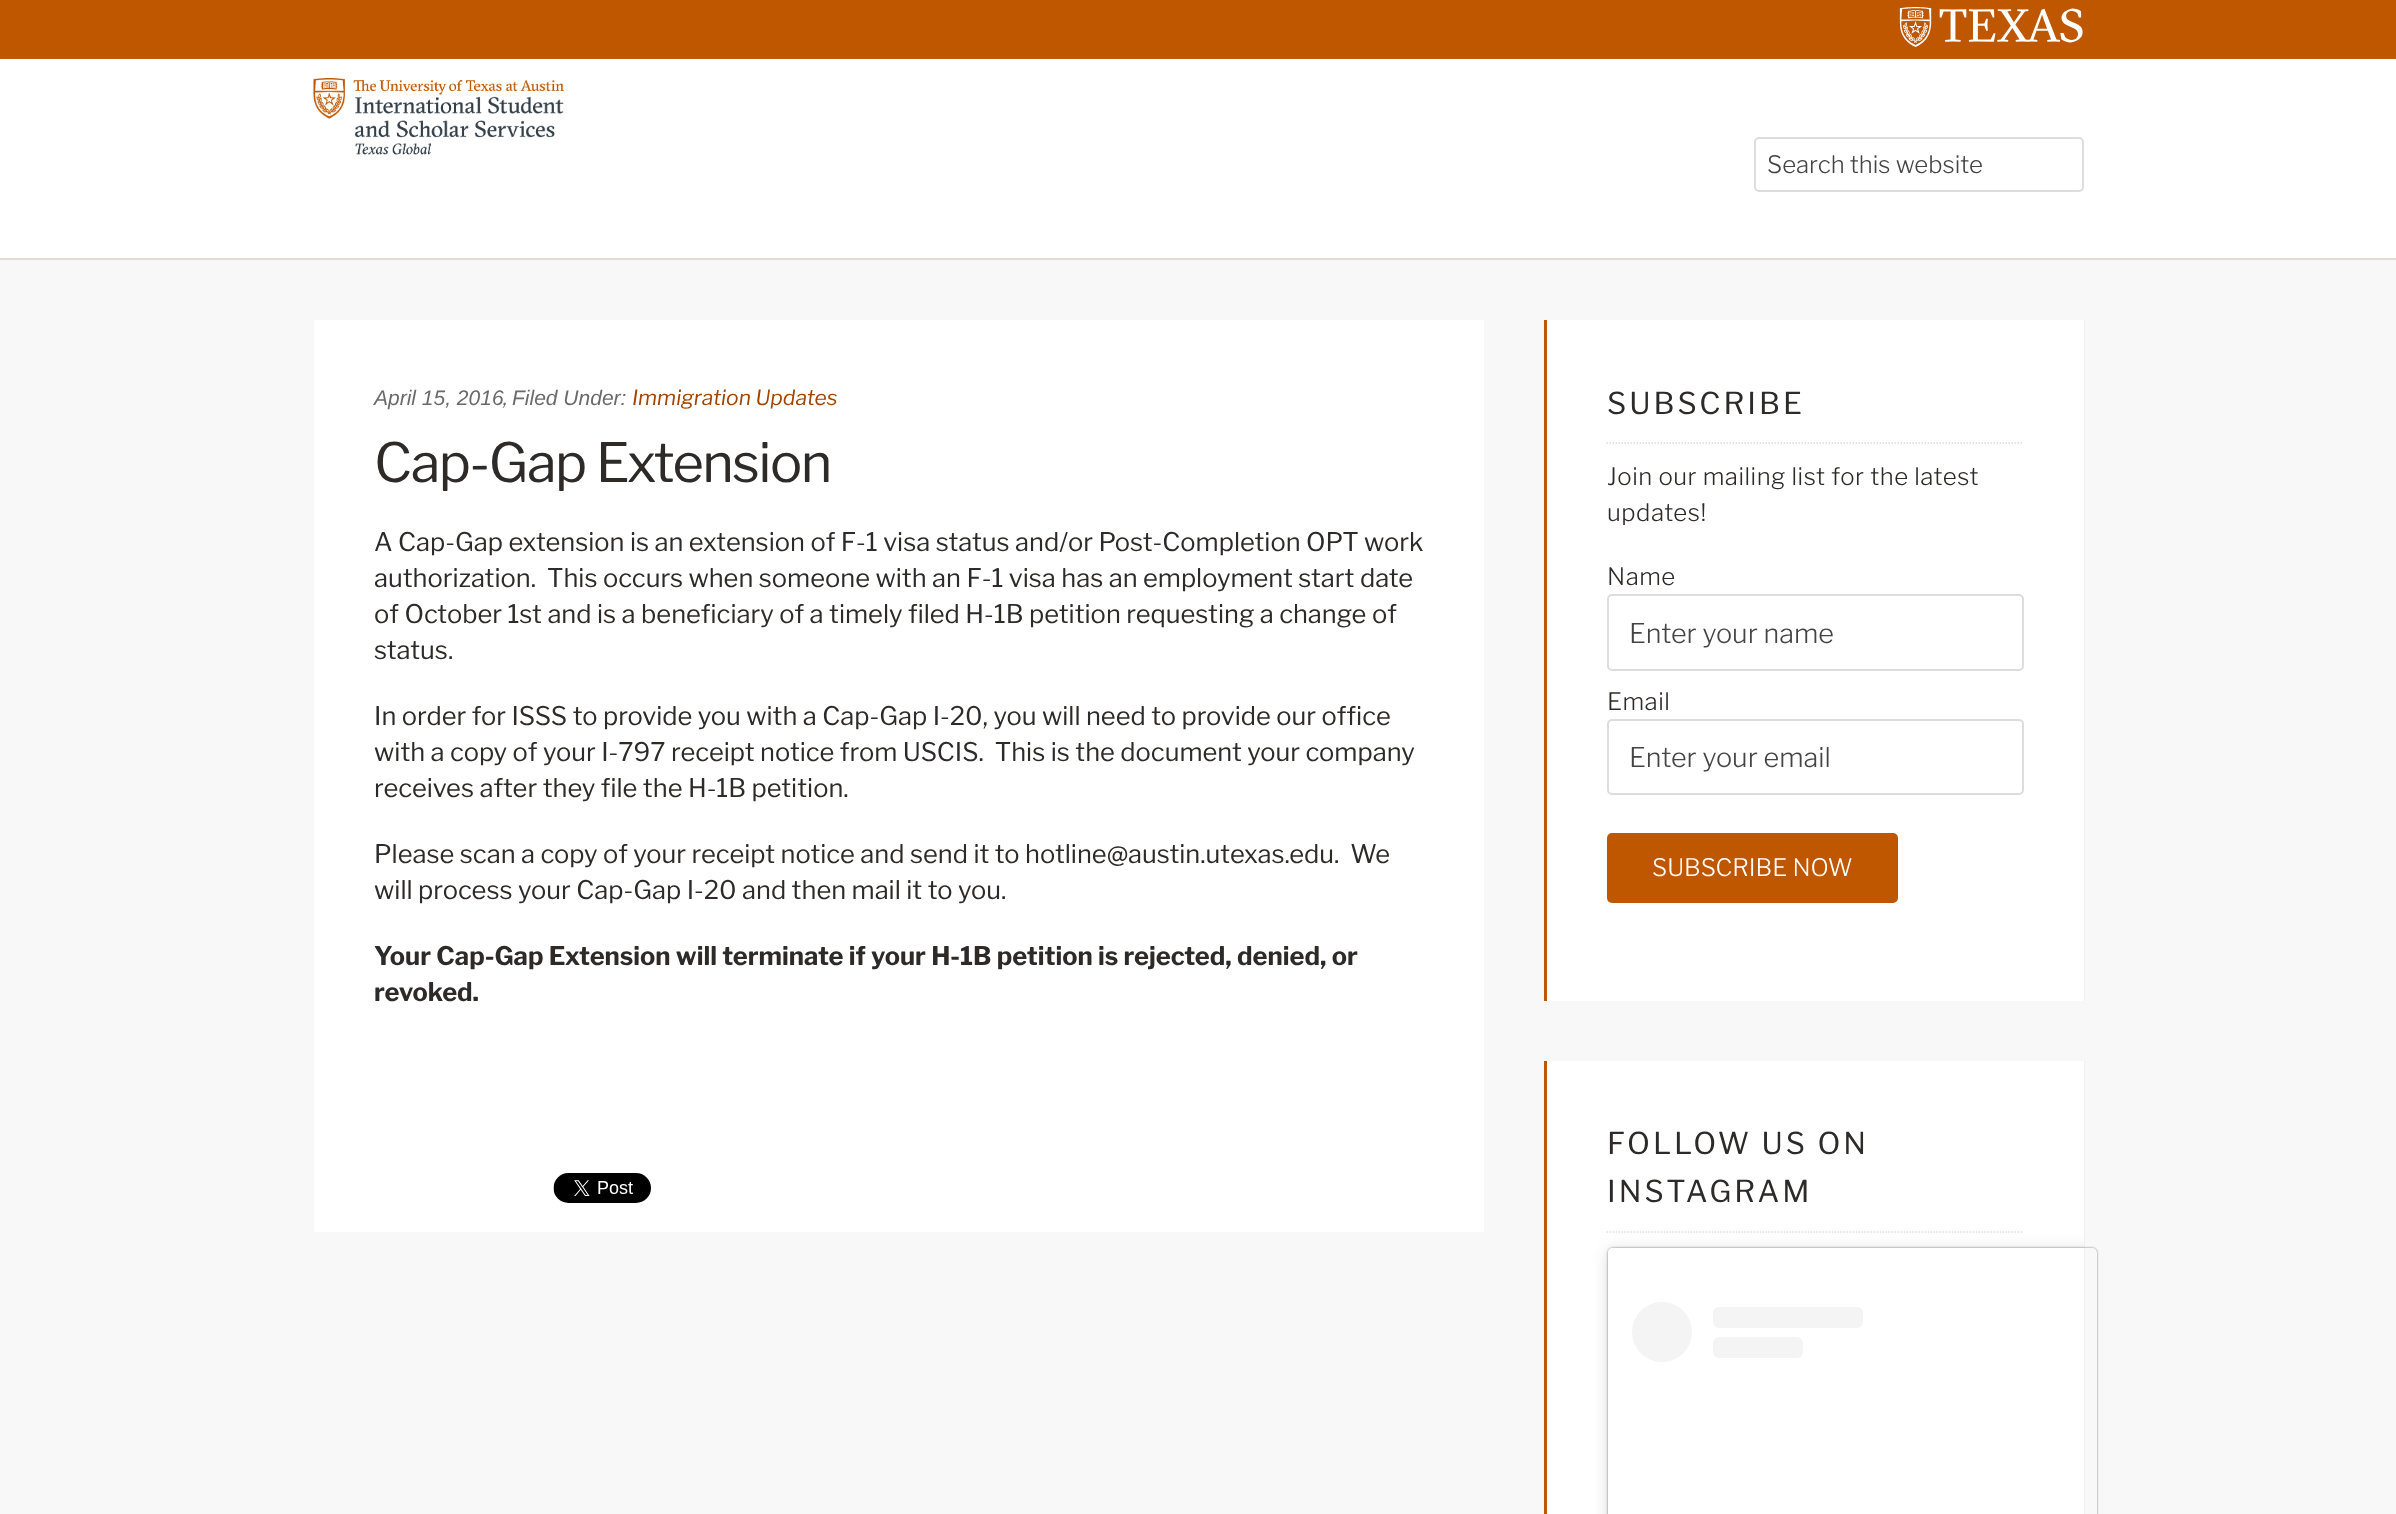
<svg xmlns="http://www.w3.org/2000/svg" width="2396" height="1514">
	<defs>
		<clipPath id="clip1"><rect x="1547" y="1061" width="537" height="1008" /></clipPath>
		<clipPath id="clip2"><path d="M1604 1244H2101V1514H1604ZM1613 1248H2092C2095 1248 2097 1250 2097 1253V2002C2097 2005 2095 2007 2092 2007H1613C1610 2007 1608 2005 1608 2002V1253C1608 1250 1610 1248 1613 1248Z" clip-rule="evenodd" /></clipPath>
	</defs>
	<rect width="100%" height="100%" fill="#F8F8F8" />
	<rect x="0" y="0" width="2396" height="59" fill="#BF5700" />
	<image x="1899" y="7" width="184" height="40" href="assets/img1.png" />
	<rect x="0" y="59" width="2396" height="199" fill="#FFFFFF" />
	<rect x="0" y="258" width="2396" height="2" fill="#E1DDD2" />
	<image x="313" y="78" width="251" height="77" href="assets/img2.png" />
	<rect x="1755" y="138" width="328" height="53" rx="4" fill="none" stroke="#DDDDDD" stroke-width="2" />
	<text x="1767" y="173" font-family="Libre Franklin" font-size="24" font-weight="300" fill="#444444">Search this website</text>
	<rect x="314" y="320" width="1170" height="912" fill="#FFFFFF" />
	<g font-family="Liberation Sans" font-size="21" font-style="italic" fill="#6A6A6A">
		<text x="374" y="405">April 15, 2016</text>
		<text x="512" y="405">Filed Under:</text>
	</g>
	<text x="632" y="405" font-family="Libre Franklin" font-size="21" font-style="italic" fill="#A04400">Immigration Updates</text>
	<text x="503" y="405" font-family="Libre Franklin" font-size="21" font-style="italic" fill="#6A6A6A">,</text>
	<text x="374" y="482" font-family="Libre Franklin" font-size="54" letter-spacing="-1.5" fill="#2D2A28">Cap-Gap Extension</text>
	<g font-family="Libre Franklin" font-size="25.5" fill="#2D2A28">
		<text x="374" y="551">A Cap-Gap extension is an extension of F-1 visa status and/or Post-Completion OPT work</text>
		<text x="374" y="587" xml:space="preserve">authorization.  This occurs when someone with an F-1 visa has an employment start date</text>
		<text x="374" y="623">of October 1st and is a beneficiary of a timely filed H-1B petition requesting a change of</text>
		<text x="374" y="659">status.</text>
		<text x="374" y="725">In order for ISSS to provide you with a Cap-Gap I-20, you will need to provide our office</text>
		<text x="374" y="761" xml:space="preserve">with a copy of your I-797 receipt notice from USCIS.  This is the document your company</text>
		<text x="374" y="797">receives after they file the H-1B petition.</text>
		<text x="374" y="863" xml:space="preserve">Please scan a copy of your receipt notice and send it to hotline@austin.utexas.edu.  We</text>
		<text x="374" y="899">will process your Cap-Gap I-20 and then mail it to you.</text>
	</g>
	<g font-family="Libre Franklin" font-size="25.5" font-weight="700" fill="#2D2A28">
		<text x="374" y="965">Your Cap-Gap Extension will terminate if your H-1B petition is rejected, denied, or</text>
		<text x="374" y="1001">revoked.</text>
	</g>
	<image x="553" y="1173" width="98" height="30" href="assets/img3.png" />
	<path d="M1545 1000V1001H2085V320H2084V1000Z" fill="#EFEFEF" />
	<rect x="1547" y="320" width="537" height="681" fill="#FFFFFF" />
	<rect x="1544" y="320" width="3" height="681" fill="#BF5700" />
	<path d="M1606.5 443H2023.5" fill="none" stroke="#DDDDDD" stroke-width="1.5" stroke-dasharray="1.5 1.5" />
	<text x="1607" y="414" font-family="Libre Franklin" font-size="30" letter-spacing="3" fill="#2D2A28">SUBSCRIBE</text>
	<g font-family="Libre Franklin" font-size="24" font-weight="300" letter-spacing="0.5" fill="#2D2A28">
		<text x="1607" y="485">Join our mailing list for the latest</text>
		<text x="1607" y="521">updates!</text>
		<text x="1607" y="585">Name</text>
	</g>
	<rect x="1608" y="595" width="415" height="75" rx="4" fill="none" stroke="#DDDDDD" stroke-width="2" />
	<text x="1629" y="643" font-family="Libre Franklin" font-size="27" font-weight="300" fill="#444444">Enter your name</text>
	<text x="1607" y="710" font-family="Libre Franklin" font-size="24" font-weight="300" letter-spacing="0.5" fill="#2D2A28">Email</text>
	<rect x="1608" y="720" width="415" height="74" rx="4" fill="none" stroke="#DDDDDD" stroke-width="2" />
	<text x="1629" y="767" font-family="Libre Franklin" font-size="27" font-weight="300" fill="#444444">Enter your email</text>
	<rect x="1607" y="833" width="291" height="70" rx="5" fill="#BF5700" />
	<text x="1652" y="876" font-family="Libre Franklin" font-size="24" font-weight="300" fill="#FFFFFF">SUBSCRIBE NOW</text>
	<path d="M1545 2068V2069H2085V1061H2084V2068Z" fill="#EFEFEF" />
	<rect x="1547" y="1061" width="537" height="453" fill="#FFFFFF" />
	<rect x="1544" y="1061" width="3" height="453" fill="#BF5700" />
	<path d="M1606.5 1232H2023.5" fill="none" stroke="#DDDDDD" stroke-width="1.5" stroke-dasharray="1.5 1.5" />
	<g font-family="Libre Franklin" font-size="30" letter-spacing="3" fill="#2D2A28">
		<text x="1607" y="1154">FOLLOW US ON</text>
		<text x="1607" y="1202">INSTAGRAM</text>
	</g>
	<g clip-path="url(#clip1)">
		<rect x="1608" y="1250" width="489" height="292" rx="5" fill="#000000" fill-opacity="0.15" filter="blur(7.5px)" />
	</g>
	<g clip-path="url(#clip2)">
		<rect x="1608" y="1248" width="489" height="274" rx="5" fill="#000000" fill-opacity="0.5" filter="blur(1px)" />
	</g>
	<path d="M1613 1248H2084V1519H1613C1610 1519 1608 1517 1608 1514V1253C1608 1250 1610 1248 1613 1248Z" fill="#FFFFFF" />
	<circle cx="1662" cy="1332" r="30" fill="#F4F4F4" />
	<rect x="1713" y="1307" width="150" height="21" rx="6" fill="#F4F4F4" />
	<rect x="1713" y="1337" width="90" height="21" rx="6" fill="#F4F4F4" />
</svg>
